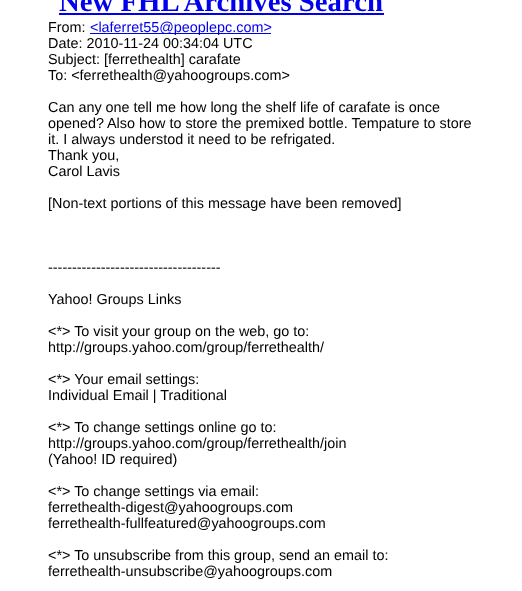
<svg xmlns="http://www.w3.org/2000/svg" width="522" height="591">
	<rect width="100%" height="100%" fill="#FFFFFF" />
	<text x="59" y="11" font-family="Liberation Serif" font-size="28.75" font-weight="700" fill="#0000EE">New FHL Archives Search</text>
	<rect x="59" y="13" width="325" height="2" fill="#0000EE" />
	<text x="48" y="32" font-family="Liberation Sans" font-size="14.4" fill="#000000">From:</text>
	<rect x="90" y="33" width="181" height="1" fill="#0000EE" />
	<text x="90" y="32" font-family="Liberation Sans" font-size="14.4" fill="#0000EE">&lt;laferret55@peoplepc.com&gt;</text>
	<g font-family="Liberation Sans" font-size="14.4" fill="#000000">
		<text x="48" y="48">Date: 2010-11-24 00:34:04 UTC</text>
		<text x="48" y="64">Subject: [ferrethealth] carafate</text>
		<text x="48" y="80">To: &lt;ferrethealth@yahoogroups.com&gt;</text>
		<text x="48" y="112">Can any one tell me how long the shelf life of carafate is once</text>
		<text x="48" y="128">opened?</text>
		<text x="107" y="128">Also how to store the premixed bottle. Tempature to store</text>
		<text x="48" y="144">it. I always understod it need to be refrigated.</text>
		<text x="48" y="160">Thank you,</text>
		<text x="48" y="176">Carol Lavis</text>
		<text x="48" y="208">[Non-text portions of this message have been removed]</text>
		<text x="48" y="272">------------------------------------</text>
		<text x="48" y="304">Yahoo! Groups Links</text>
		<text x="48" y="336">&lt;*&gt; To visit your group on the web, go to:</text>
		<text x="48" y="352">http://groups.yahoo.com/group/ferrethealth/</text>
		<text x="48" y="384">&lt;*&gt; Your email settings:</text>
		<text x="48" y="400">Individual Email | Traditional</text>
		<text x="48" y="432">&lt;*&gt; To change settings online go to:</text>
		<text x="48" y="448">http://groups.yahoo.com/group/ferrethealth/join</text>
		<text x="48" y="464">(Yahoo! ID required)</text>
		<text x="48" y="496">&lt;*&gt; To change settings via email:</text>
		<text x="48" y="512">ferrethealth-digest@yahoogroups.com</text>
		<text x="48" y="528">ferrethealth-fullfeatured@yahoogroups.com</text>
		<text x="48" y="560">&lt;*&gt; To unsubscribe from this group, send an email to:</text>
		<text x="48" y="576">ferrethealth-unsubscribe@yahoogroups.com</text>
	</g>
</svg>
